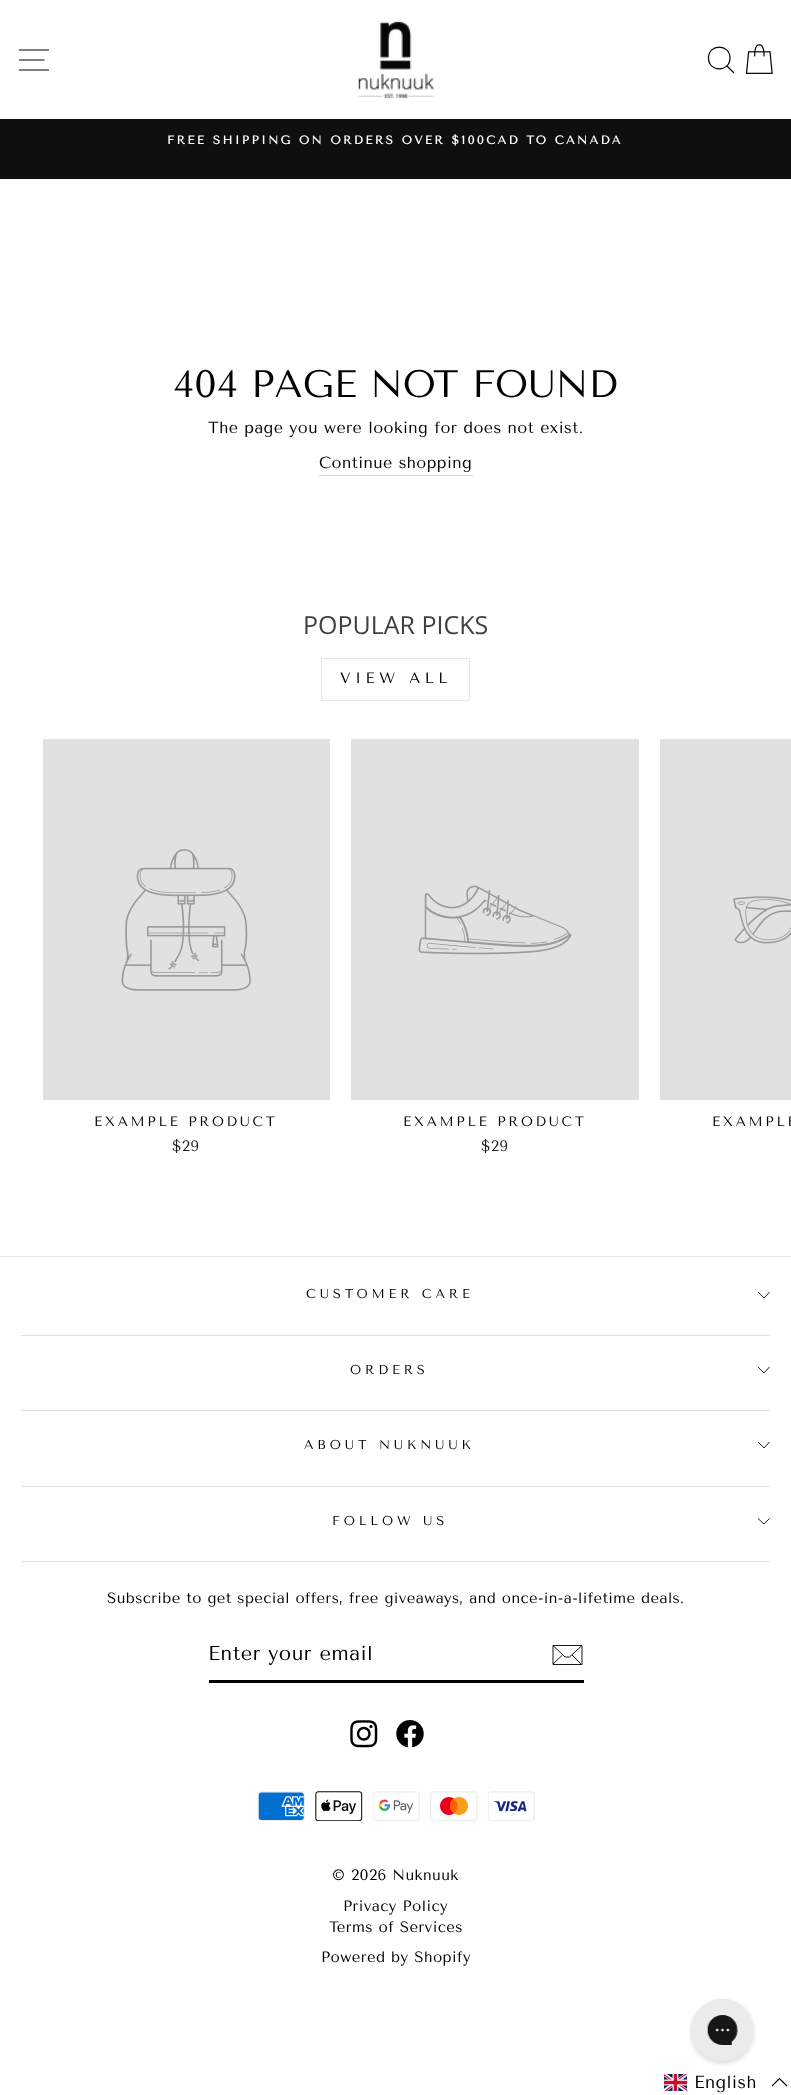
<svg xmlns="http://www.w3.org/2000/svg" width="791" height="2095">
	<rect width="100%" height="100%" fill="#FFFFFF" />
	<rect x="0" y="119" width="791" height="60" fill="#0F0F0F" />
	<rect x="0" y="0" width="791" height="119" fill="#000000" fill-opacity="0.2" filter="blur(0.5px)" />
	<rect x="0" y="0" width="791" height="119" fill="#FFFFFF" />
	<path d="M19 50H49M19 60H44.5M19 70H49" fill="none" stroke="#000000" stroke-width="1.2" />
	<image x="358" y="21" width="76" height="78" href="assets/img1.png" />
	<path d="M730 58C730 72.5 708.5 72.5 708.5 58C708.5 43.5 730 43.5 730 58ZM734 73L727 66" fill="none" stroke="#000000" stroke-width="1.2" />
	<image x="745" y="44" width="28" height="30" href="assets/img2.png" />
	<text x="167" y="144" font-family="Tenor Sans" font-size="11.8" font-weight="700" letter-spacing="2.35" fill="#FFFFFF">FREE SHIPPING ON ORDERS OVER $100CAD TO CANADA</text>
	<text x="173" y="397" font-family="Tenor Sans" font-size="38.25" fill="#000000">404 PAGE NOT FOUND</text>
	<text x="208" y="433" font-family="Tenor Sans" font-size="16.1" letter-spacing="0.4" fill="#000000">The page you were looking for does not exist.</text>
	<rect x="319" y="475" width="154" height="1" fill="#D9D9D9" />
	<text x="319" y="468" font-family="Tenor Sans" font-size="16.1" letter-spacing="0.4" fill="#000000">Continue shopping</text>
	<text x="303" y="634" font-family="Open Sans" font-size="25" fill="#404040">POPULAR PICKS</text>
	<rect x="321.5" y="658.5" width="148" height="42" fill="none" stroke="#E8E8E1" />
	<text x="340" y="683" font-family="Tenor Sans" font-size="15" letter-spacing="4.5" fill="#000000">VIEW ALL</text>
	<rect x="43" y="739" width="287" height="361" fill="#E1E1E1" />
	<image x="121" y="849" width="130" height="142" href="assets/img3.png" />
	<text x="94" y="1126" font-family="Tenor Sans" font-size="13.75" letter-spacing="2.75" fill="#000000">EXAMPLE PRODUCT</text>
	<text x="172" y="1151" font-family="Tenor Sans" font-size="15" letter-spacing="0.4" fill="#1C1D1D">$29</text>
	<rect x="351" y="739" width="288" height="361" fill="#E1E1E1" />
	<image x="418" y="885" width="154" height="70" href="assets/img4.png" />
	<text x="403" y="1126" font-family="Tenor Sans" font-size="13.75" letter-spacing="2.75" fill="#000000">EXAMPLE PRODUCT</text>
	<text x="481" y="1151" font-family="Tenor Sans" font-size="15" letter-spacing="0.4" fill="#1C1D1D">$29</text>
	<rect x="660" y="739" width="131" height="361" fill="#E1E1E1" />
	<image x="733" y="896" width="58" height="48" href="assets/img5.png" />
	<text x="712" y="1126" font-family="Tenor Sans" font-size="13.75" letter-spacing="2.75" fill="#000000">EXAMPLE</text>
	<rect x="0" y="1256" width="791" height="1" fill="#E8E8E1" />
	<text x="306" y="1298" font-family="Tenor Sans" font-size="12.9" letter-spacing="3.9" fill="#000000">CUSTOMER CARE</text>
	<path d="M758 1292L764 1298L769.5 1292" fill="none" stroke="#000000" stroke-width="0.9" />
	<rect x="21" y="1335" width="749" height="1" fill="#E0E0E0" />
	<text x="350" y="1374" font-family="Tenor Sans" font-size="12.9" letter-spacing="3.9" fill="#000000">ORDERS</text>
	<path d="M758 1367L764 1373L769.5 1367" fill="none" stroke="#000000" stroke-width="0.9" />
	<rect x="21" y="1410" width="749" height="1" fill="#E0E0E0" />
	<text x="304" y="1449" font-family="Tenor Sans" font-size="12.9" letter-spacing="3.9" fill="#000000">ABOUT NUKNUUK</text>
	<path d="M758 1442L764 1448L769.5 1442" fill="none" stroke="#000000" stroke-width="0.9" />
	<rect x="21" y="1486" width="749" height="1" fill="#E0E0E0" />
	<text x="332" y="1525" font-family="Tenor Sans" font-size="12.9" letter-spacing="3.9" fill="#000000">FOLLOW US</text>
	<path d="M758 1518.5L764 1524L769.5 1518.5" fill="none" stroke="#000000" stroke-width="0.9" />
	<rect x="21" y="1561" width="749" height="1" fill="#E0E0E0" />
	<text x="107" y="1603" font-family="Tenor Sans" font-size="14.9" letter-spacing="0.4" fill="#000000">Subscribe to get special offers, free giveaways, and once-in-a-lifetime deals.</text>
	<rect x="209" y="1680" width="375" height="3" fill="#000000" />
	<text x="208" y="1660" font-family="Tenor Sans" font-size="20" letter-spacing="0.5" fill="#000000">Enter your email</text>
	<path d="M582 1664.5H553V1645.5H582ZM553 1645.5L565 1657H569.5L582 1645.5M562.5 1655L553 1664M581.5 1664.5L572 1655" fill="none" stroke="#000000" stroke-width="0.9" />
	<image x="350" y="1720" width="28" height="28" href="assets/img6.png" />
	<image x="396" y="1720" width="28" height="28" href="assets/img7.png" />
	<image x="258" y="1791" width="47" height="30" href="assets/img8.png" />
	<image x="315" y="1791" width="48" height="30" href="assets/img9.png" />
	<image x="373" y="1791" width="47" height="30" href="assets/img10.png" />
	<image x="430" y="1791" width="48" height="30" href="assets/img11.png" />
	<image x="488" y="1791" width="47" height="30" href="assets/img12.png" />
	<g font-family="Tenor Sans" font-size="15" letter-spacing="0.4" fill="#000000">
		<text x="332" y="1880">© 2026 Nuknuuk</text>
		<text x="343" y="1911">Privacy Policy</text>
		<text x="329" y="1932">Terms of Services</text>
		<text x="321" y="1962">Powered by Shopify</text>
	</g>
	<image x="689" y="1998" width="67" height="68" href="assets/img13.png" />
	<image x="664" y="2074" width="24" height="17" href="assets/img14.png" />
	<text x="694" y="2088" font-family="Tenor Sans" font-size="17.5" letter-spacing="0.4" fill="#000000">English</text>
	<path d="M787 2086L779.5 2078.5L772 2086" fill="none" stroke="#000000" stroke-width="1.2" />
</svg>
